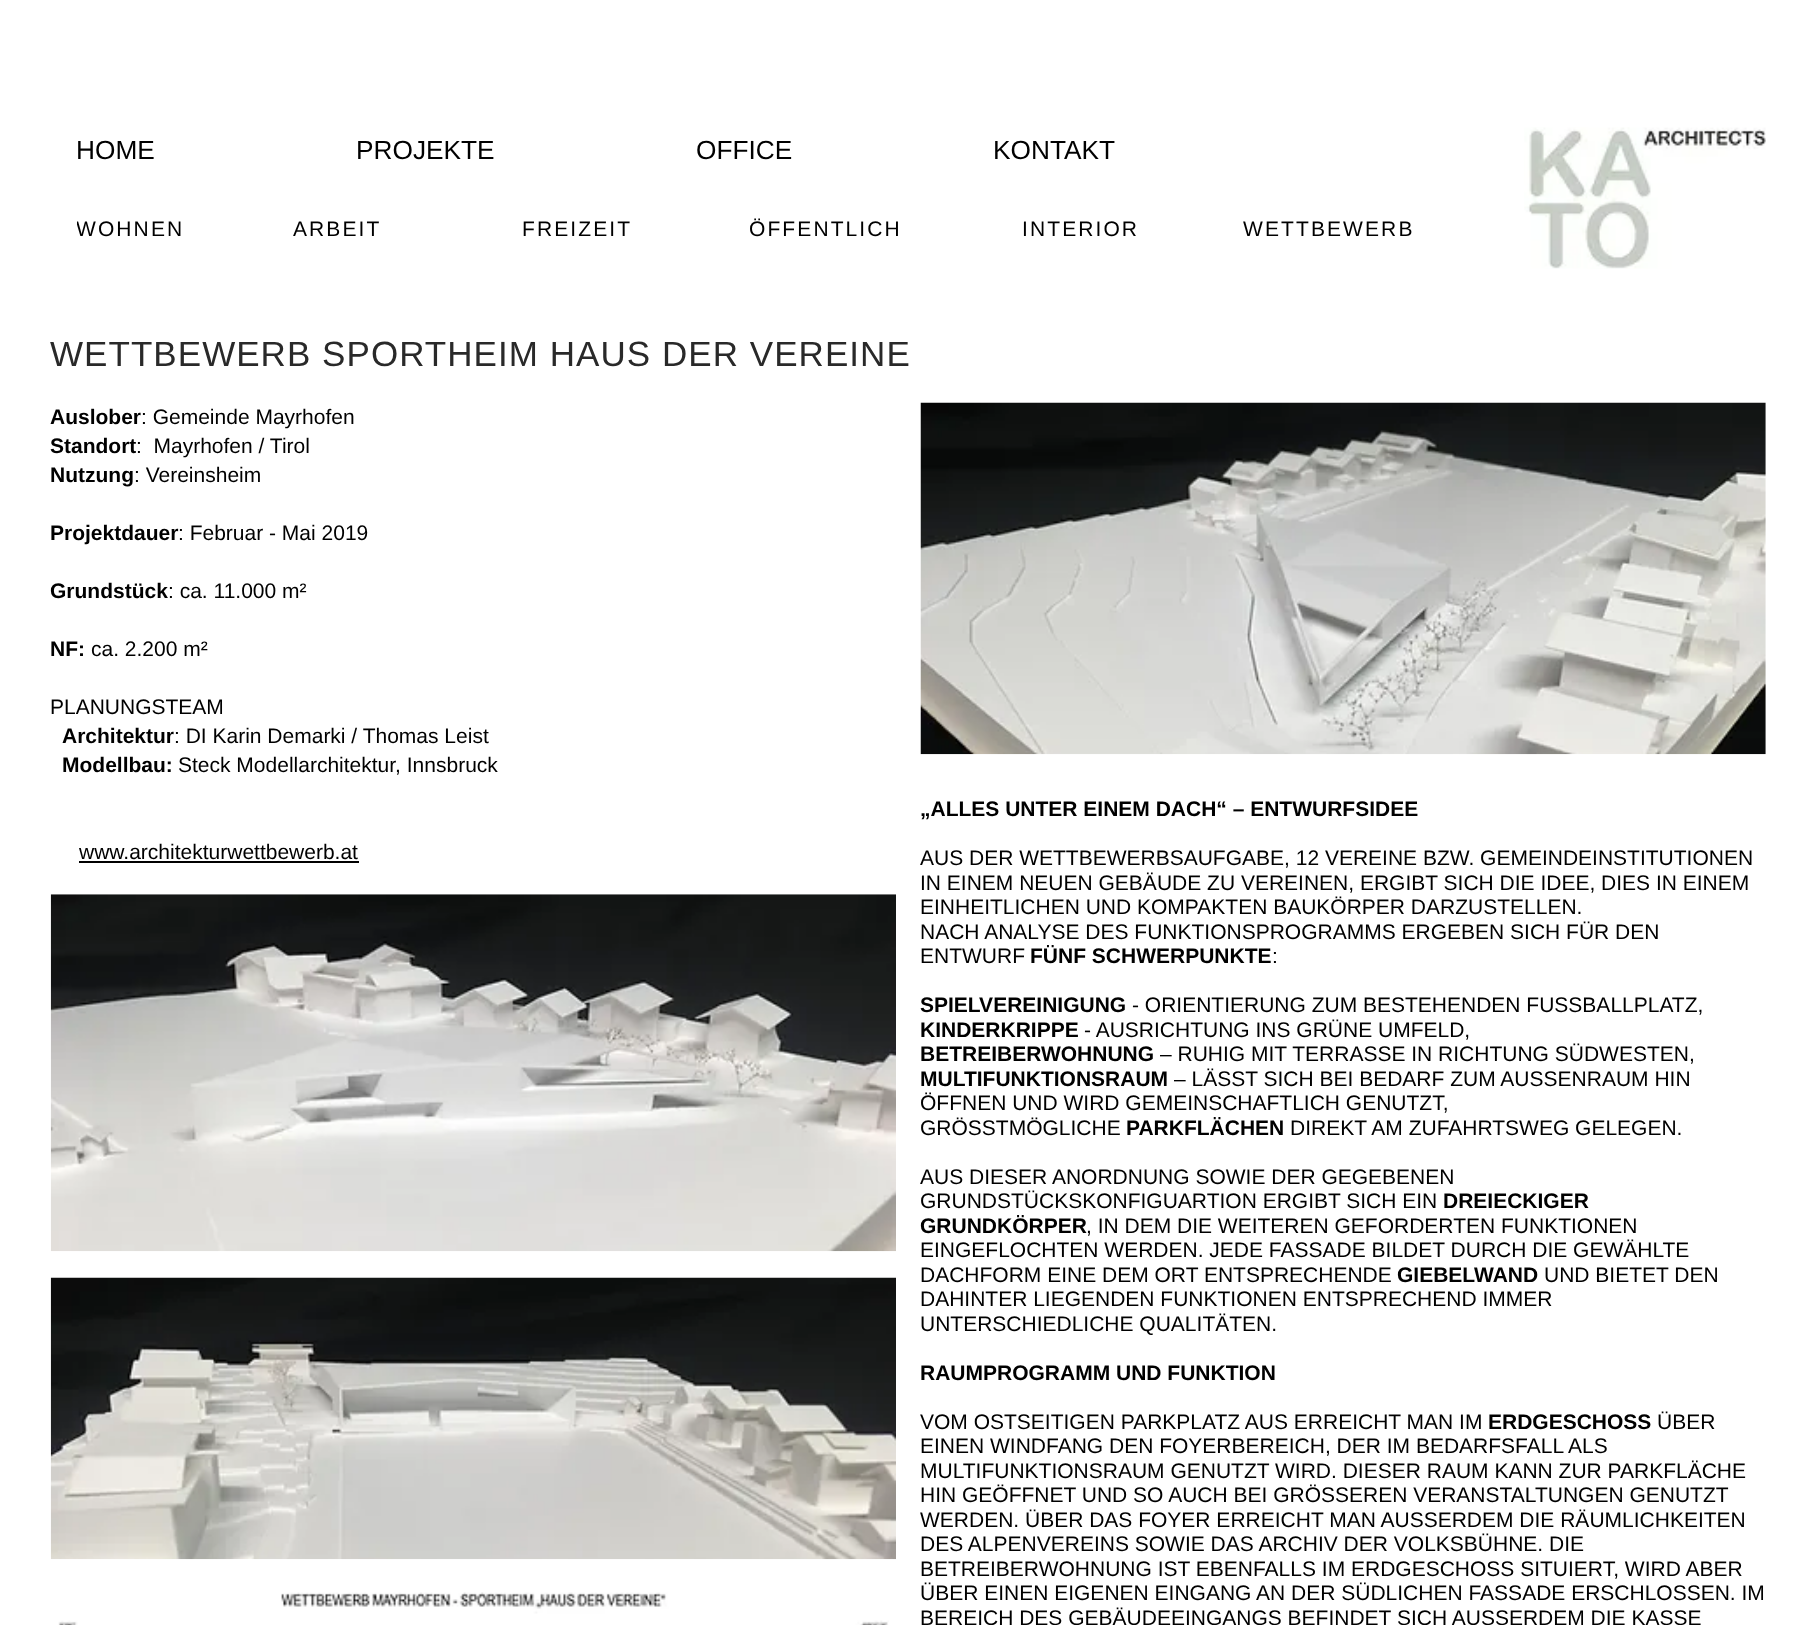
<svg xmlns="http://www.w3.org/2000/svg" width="1814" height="1625">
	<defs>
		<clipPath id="clip1"><rect x="77" y="217" width="107" height="25" /></clipPath>
	</defs>
	<rect width="100%" height="100%" fill="#FFFFFF" />
	<g font-family="Liberation Sans" font-size="26.25" fill="#000000">
		<text x="76" y="159">HOME</text>
		<text x="356" y="159">PROJEKTE</text>
		<text x="696" y="159">OFFICE</text>
		<text x="993" y="159">KONTAKT</text>
	</g>
	<image x="1524" y="127" width="242" height="142" href="assets/img1.png" />
	<g font-family="Liberation Sans" font-size="21" letter-spacing="2.1" fill="#000000">
		<text x="293" y="236">ARBEIT</text>
		<text x="522" y="236">FREIZEIT</text>
		<text x="749" y="236">ÖFFENTLICH</text>
		<text x="1022" y="236">INTERIOR</text>
		<text x="1243" y="236">WETTBEWERB</text>
	</g>
	<g clip-path="url(#clip1)">
		<text x="76" y="236" font-family="Liberation Sans" font-size="21" letter-spacing="2.1" fill="#000000">WOHNEN</text>
	</g>
	<text x="50" y="366" font-family="Liberation Sans" font-size="35" letter-spacing="1.05" fill="#292929">WETTBEWERB SPORTHEIM HAUS DER VEREINE</text>
	<text x="50" y="424" font-family="Liberation Sans" font-size="21" font-weight="700" fill="#000000">Auslober</text>
	<text x="141" y="424" font-family="Liberation Sans" font-size="21" fill="#000000">: Gemeinde Mayrhofen</text>
	<text x="50" y="453" font-family="Liberation Sans" font-size="21" font-weight="700" fill="#000000">Standort</text>
	<text x="136" y="453" font-family="Liberation Sans" font-size="21" fill="#000000" xml:space="preserve">:  Mayrhofen / Tirol</text>
	<text x="50" y="482" font-family="Liberation Sans" font-size="21" font-weight="700" fill="#000000">Nutzung</text>
	<text x="134" y="482" font-family="Liberation Sans" font-size="21" fill="#000000">: Vereinsheim</text>
	<text x="50" y="540" font-family="Liberation Sans" font-size="21" font-weight="700" fill="#000000">Projektdauer</text>
	<text x="178" y="540" font-family="Liberation Sans" font-size="21" fill="#000000">: Februar - Mai 2019</text>
	<text x="50" y="598" font-family="Liberation Sans" font-size="21" font-weight="700" fill="#000000">Grundstück</text>
	<text x="168" y="598" font-family="Liberation Sans" font-size="21" fill="#000000">: ca. 11.000 m²</text>
	<text x="50" y="656" font-family="Liberation Sans" font-size="21" font-weight="700" fill="#000000">NF:</text>
	<g font-family="Liberation Sans" font-size="21" fill="#000000">
		<text x="91" y="656">ca. 2.200 m²</text>
		<text x="50" y="714">PLANUNGSTEAM</text>
	</g>
	<text x="62" y="743" font-family="Liberation Sans" font-size="21" font-weight="700" fill="#000000">Architektur</text>
	<text x="174" y="743" font-family="Liberation Sans" font-size="21" fill="#000000">: DI Karin Demarki / Thomas Leist</text>
	<text x="62" y="772" font-family="Liberation Sans" font-size="21" font-weight="700" fill="#000000">Modellbau:</text>
	<g font-family="Liberation Sans" font-size="21" fill="#000000">
		<text x="178" y="772">Steck Modellarchitektur, Innsbruck</text>
		<text x="79" y="859">www.architekturwettbewerb.at</text>
	</g>
	<rect x="79" y="861" width="280" height="2" fill="#000000" />
	<image x="920" y="402" width="846" height="353" href="assets/img2.png" />
	<image x="50" y="894" width="846" height="358" href="assets/img3.png" />
	<text x="920" y="816" font-family="Liberation Sans" font-size="21" font-weight="700" fill="#000000">„ALLES UNTER EINEM DACH“ – ENTWURFSIDEE</text>
	<g font-family="Liberation Sans" font-size="21" fill="#000000">
		<text x="920" y="865">AUS DER WETTBEWERBSAUFGABE, 12 VEREINE BZW. GEMEINDEINSTITUTIONEN</text>
		<text x="920" y="890">IN EINEM NEUEN GEBÄUDE ZU VEREINEN, ERGIBT SICH DIE IDEE, DIES IN EINEM</text>
		<text x="920" y="914">EINHEITLICHEN UND KOMPAKTEN BAUKÖRPER DARZUSTELLEN.</text>
		<text x="920" y="939">NACH ANALYSE DES FUNKTIONSPROGRAMMS ERGEBEN SICH FÜR DEN</text>
		<text x="920" y="963">ENTWURF</text>
	</g>
	<text x="1030" y="963" font-family="Liberation Sans" font-size="21" font-weight="700" fill="#000000">FÜNF SCHWERPUNKTE</text>
	<text x="1272" y="963" font-family="Liberation Sans" font-size="21" fill="#000000">:</text>
	<text x="920" y="1012" font-family="Liberation Sans" font-size="21" font-weight="700" fill="#000000">SPIELVEREINIGUNG</text>
	<text x="1132" y="1012" font-family="Liberation Sans" font-size="21" fill="#000000">- ORIENTIERUNG ZUM BESTEHENDEN FUSSBALLPLATZ,</text>
	<text x="920" y="1037" font-family="Liberation Sans" font-size="21" font-weight="700" fill="#000000">KINDERKRIPPE</text>
	<text x="1084" y="1037" font-family="Liberation Sans" font-size="21" fill="#000000">- AUSRICHTUNG INS GRÜNE UMFELD,</text>
	<text x="920" y="1061" font-family="Liberation Sans" font-size="21" font-weight="700" fill="#000000">BETREIBERWOHNUNG</text>
	<text x="1160" y="1061" font-family="Liberation Sans" font-size="21" fill="#000000">– RUHIG MIT TERRASSE IN RICHTUNG SÜDWESTEN,</text>
	<text x="920" y="1086" font-family="Liberation Sans" font-size="21" font-weight="700" fill="#000000">MULTIFUNKTIONSRAUM</text>
	<g font-family="Liberation Sans" font-size="21" fill="#000000">
		<text x="1174" y="1086">– LÄSST SICH BEI BEDARF ZUM AUSSENRAUM HIN</text>
		<text x="920" y="1110">ÖFFNEN UND WIRD GEMEINSCHAFTLICH GENUTZT,</text>
		<text x="920" y="1135">GRÖSSTMÖGLICHE</text>
	</g>
	<text x="1126" y="1135" font-family="Liberation Sans" font-size="21" font-weight="700" fill="#000000">PARKFLÄCHEN</text>
	<g font-family="Liberation Sans" font-size="21" fill="#000000">
		<text x="1290" y="1135">DIREKT AM ZUFAHRTSWEG GELEGEN.</text>
		<text x="920" y="1184">AUS DIESER ANORDNUNG SOWIE DER GEGEBENEN</text>
		<text x="920" y="1208">GRUNDSTÜCKSKONFIGUARTION ERGIBT SICH EIN</text>
	</g>
	<g font-family="Liberation Sans" font-size="21" font-weight="700" fill="#000000">
		<text x="1443" y="1208">DREIECKIGER</text>
		<text x="920" y="1233">GRUNDKÖRPER</text>
	</g>
	<g font-family="Liberation Sans" font-size="21" fill="#000000">
		<text x="1086" y="1233">, IN DEM DIE WEITEREN GEFORDERTEN FUNKTIONEN</text>
		<text x="920" y="1257">EINGEFLOCHTEN WERDEN. JEDE FASSADE BILDET DURCH DIE GEWÄHLTE</text>
		<text x="920" y="1282">DACHFORM EINE DEM ORT ENTSPRECHENDE</text>
	</g>
	<text x="1397" y="1282" font-family="Liberation Sans" font-size="21" font-weight="700" fill="#000000">GIEBELWAND</text>
	<g font-family="Liberation Sans" font-size="21" fill="#000000">
		<text x="1544" y="1282">UND BIETET DEN</text>
		<text x="920" y="1306">DAHINTER LIEGENDEN FUNKTIONEN ENTSPRECHEND IMMER</text>
		<text x="920" y="1331">UNTERSCHIEDLICHE QUALITÄTEN.</text>
	</g>
	<text x="920" y="1380" font-family="Liberation Sans" font-size="21" font-weight="700" fill="#000000">RAUMPROGRAMM UND FUNKTION</text>
	<text x="920" y="1429" font-family="Liberation Sans" font-size="21" fill="#000000">VOM OSTSEITIGEN PARKPLATZ AUS ERREICHT MAN IM</text>
	<text x="1488" y="1429" font-family="Liberation Sans" font-size="21" font-weight="700" fill="#000000">ERDGESCHOSS</text>
	<g font-family="Liberation Sans" font-size="21" fill="#000000">
		<text x="1657" y="1429">ÜBER</text>
		<text x="920" y="1453">EINEN WINDFANG DEN FOYERBEREICH, DER IM BEDARFSFALL ALS</text>
		<text x="920" y="1478">MULTIFUNKTIONSRAUM GENUTZT WIRD. DIESER RAUM KANN ZUR PARKFLÄCHE</text>
		<text x="920" y="1502">HIN GEÖFFNET UND SO AUCH BEI GRÖSSEREN VERANSTALTUNGEN GENUTZT</text>
		<text x="920" y="1527">WERDEN. ÜBER DAS FOYER ERREICHT MAN AUSSERDEM DIE RÄUMLICHKEITEN</text>
		<text x="920" y="1551">DES ALPENVEREINS SOWIE DAS ARCHIV DER VOLKSBÜHNE. DIE</text>
		<text x="920" y="1576">BETREIBERWOHNUNG IST EBENFALLS IM ERDGESCHOSS SITUIERT, WIRD ABER</text>
		<text x="920" y="1600">ÜBER EINEN EIGENEN EINGANG AN DER SÜDLICHEN FASSADE ERSCHLOSSEN. IM</text>
		<text x="920" y="1625">BEREICH DES GEBÄUDEEINGANGS BEFINDET SICH AUSSERDEM DIE KASSE</text>
	</g>
	<image x="50" y="1277" width="846" height="283" href="assets/img4.png" />
	<image x="58" y="1592" width="831" height="33" href="assets/img5.png" />
</svg>
